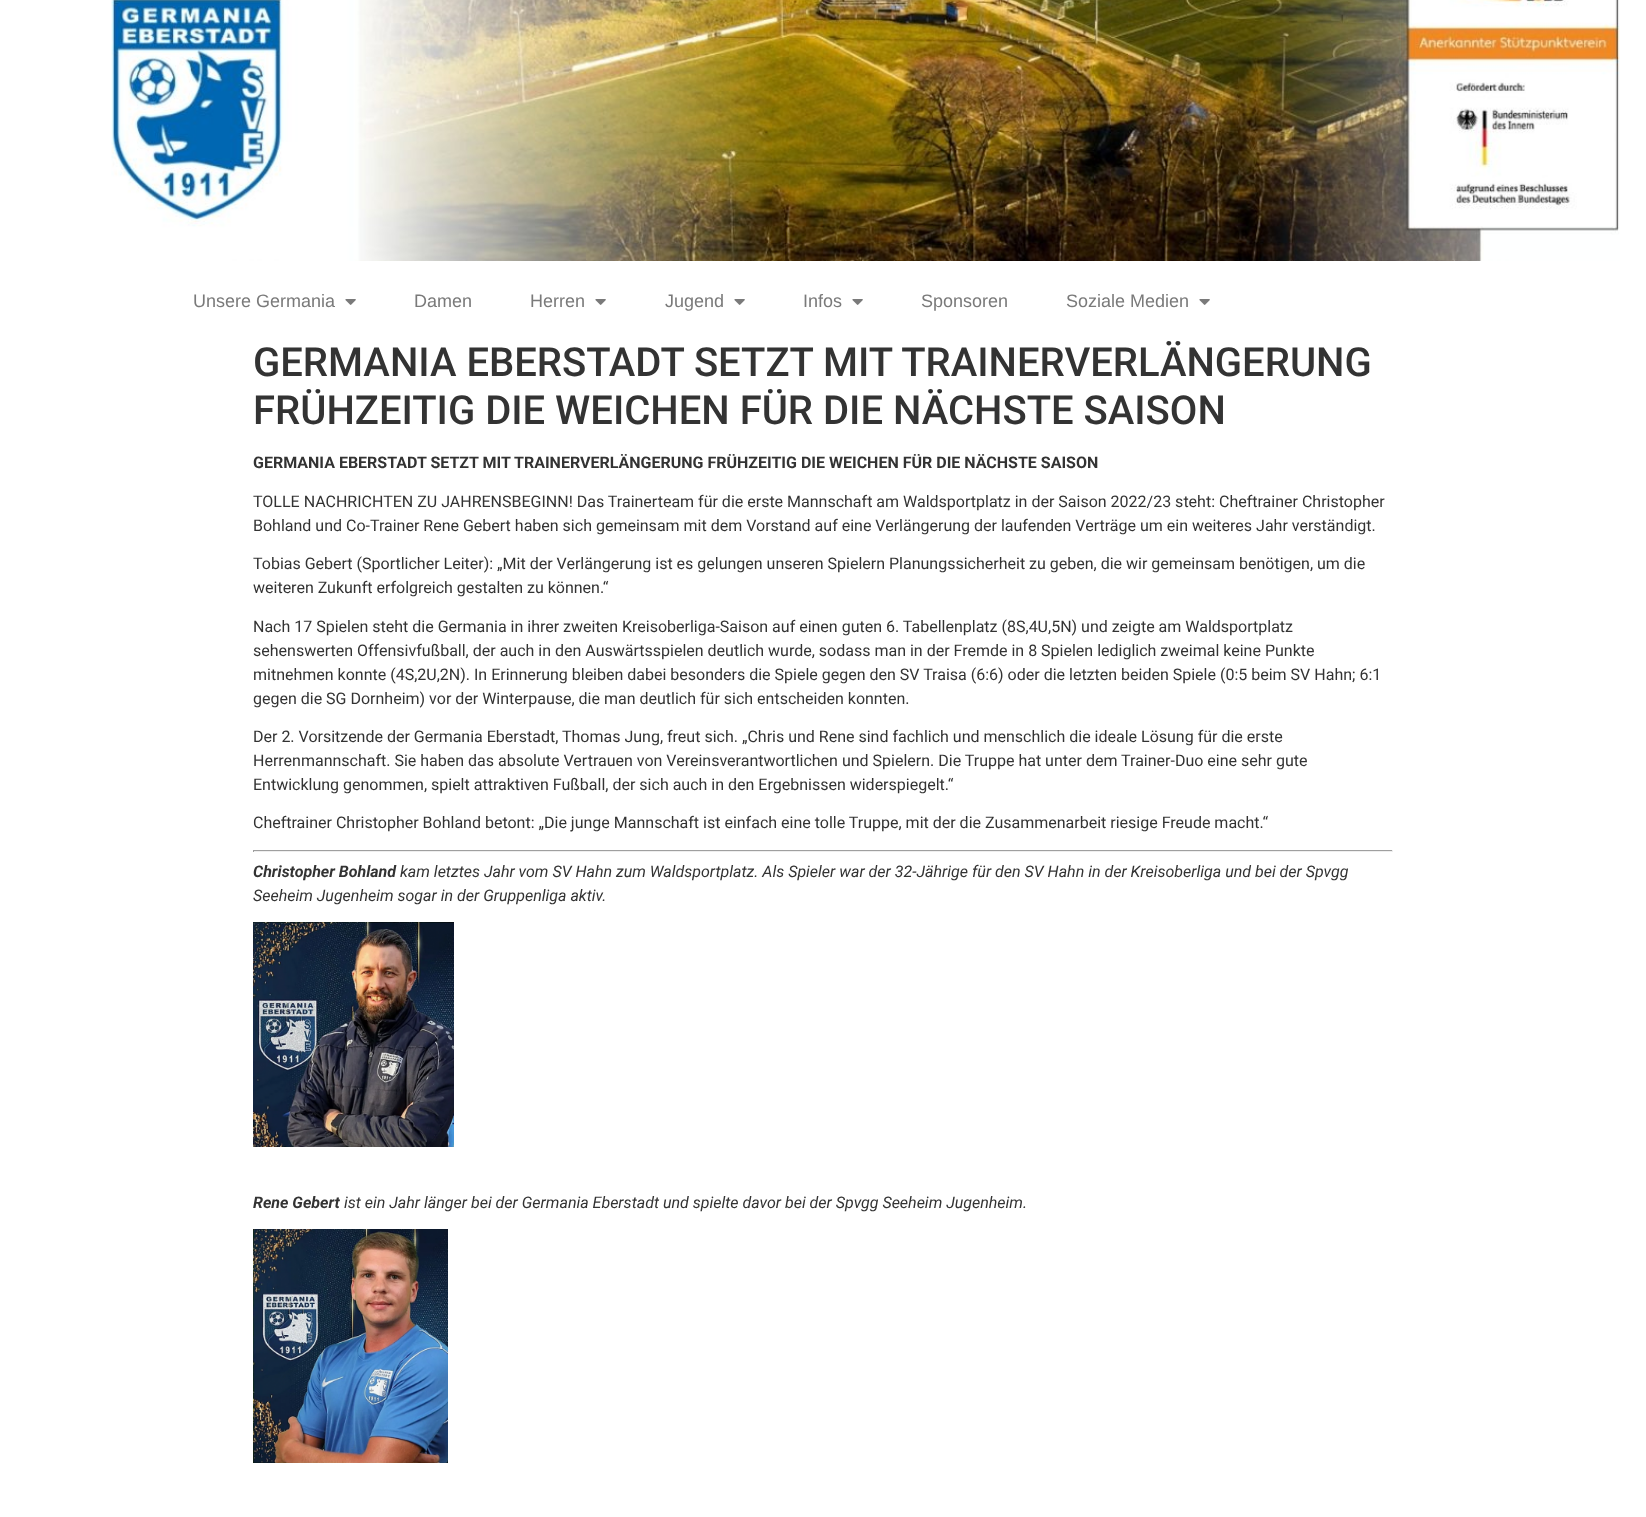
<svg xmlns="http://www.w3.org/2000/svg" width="1646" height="1517">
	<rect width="100%" height="100%" fill="#FFFFFF" />
	<image x="111" y="0" width="1509" height="261" href="assets/img1.png" />
	<text x="193" y="307" font-family="Liberation Sans" font-size="18" fill="#7A7A7A">Unsere Germania</text>
	<image x="345" y="299" width="11" height="6" href="assets/img2.png" />
	<g font-family="Liberation Sans" font-size="18" fill="#7A7A7A">
		<text x="414" y="307">Damen</text>
		<text x="530" y="307">Herren</text>
	</g>
	<image x="595" y="299" width="11" height="6" href="assets/img2.png" />
	<text x="665" y="307" font-family="Liberation Sans" font-size="18" fill="#7A7A7A">Jugend</text>
	<image x="734" y="299" width="11" height="6" href="assets/img2.png" />
	<text x="803" y="307" font-family="Liberation Sans" font-size="18" fill="#7A7A7A">Infos</text>
	<image x="852" y="299" width="11" height="6" href="assets/img2.png" />
	<g font-family="Liberation Sans" font-size="18" fill="#7A7A7A">
		<text x="921" y="307">Sponsoren</text>
		<text x="1066" y="307">Soziale Medien</text>
	</g>
	<image x="1199" y="299" width="11" height="6" href="assets/img2.png" />
	<g font-family="Roboto" font-size="40" font-weight="500" fill="#333333">
		<text x="253" y="376">GERMANIA EBERSTADT SETZT MIT TRAINERVERLÄNGERUNG</text>
		<text x="253" y="424">FRÜHZEITIG DIE WEICHEN FÜR DIE NÄCHSTE SAISON</text>
	</g>
	<text x="253" y="468" font-family="Roboto" font-size="16" font-weight="700" fill="#333333">GERMANIA EBERSTADT SETZT MIT TRAINERVERLÄNGERUNG FRÜHZEITIG DIE WEICHEN FÜR DIE NÄCHSTE SAISON</text>
	<g font-family="Roboto" font-size="16" fill="#333333">
		<text x="253" y="507">TOLLE NACHRICHTEN ZU JAHRENSBEGINN! Das Trainerteam für die erste Mannschaft am Waldsportplatz in der Saison 2022/23 steht: Cheftrainer Christopher</text>
		<text x="253" y="531">Bohland und Co-Trainer Rene Gebert haben sich gemeinsam mit dem Vorstand auf eine Verlängerung der laufenden Verträge um ein weiteres Jahr verständigt.</text>
		<text x="253" y="569">Tobias Gebert (Sportlicher Leiter): „Mit der Verlängerung ist es gelungen unseren Spielern Planungssicherheit zu geben, die wir gemeinsam benötigen, um die</text>
		<text x="253" y="593">weiteren Zukunft erfolgreich gestalten zu können.“</text>
		<text x="253" y="632">Nach 17 Spielen steht die Germania in ihrer zweiten Kreisoberliga-Saison auf einen guten 6. Tabellenplatz (8S,4U,5N) und zeigte am Waldsportplatz</text>
		<text x="253" y="656">sehenswerten Offensivfußball, der auch in den Auswärtsspielen deutlich wurde, sodass man in der Fremde in 8 Spielen lediglich zweimal keine Punkte</text>
		<text x="253" y="680">mitnehmen konnte (4S,2U,2N). In Erinnerung bleiben dabei besonders die Spiele gegen den SV Traisa (6:6) oder die letzten beiden Spiele (0:5 beim SV Hahn; 6:1</text>
		<text x="253" y="704">gegen die SG Dornheim) vor der Winterpause, die man deutlich für sich entscheiden konnten.</text>
		<text x="253" y="742">Der 2. Vorsitzende der Germania Eberstadt, Thomas Jung, freut sich. „Chris und Rene sind fachlich und menschlich die ideale Lösung für die erste</text>
		<text x="253" y="766">Herrenmannschaft. Sie haben das absolute Vertrauen von Vereinsverantwortlichen und Spielern. Die Truppe hat unter dem Trainer-Duo eine sehr gute</text>
		<text x="253" y="790">Entwicklung genommen, spielt attraktiven Fußball, der sich auch in den Ergebnissen widerspiegelt.“</text>
		<text x="253" y="828">Cheftrainer Christopher Bohland betont: „Die junge Mannschaft ist einfach eine tolle Truppe, mit der die Zusammenarbeit riesige Freude macht.“</text>
	</g>
	<rect x="253" y="850" width="1140" height="1" fill="#9F9F9F" />
	<rect x="1392" y="850" width="1" height="2" fill="#EEEEEE" />
	<rect x="253" y="851" width="1140" height="1" fill="#EEEEEE" />
	<rect x="253" y="850" width="1" height="2" fill="#9F9F9F" />
	<text x="253" y="877" font-family="Roboto" font-size="16" font-weight="700" font-style="italic" fill="#333333">Christopher Bohland</text>
	<g font-family="Roboto" font-size="16" font-style="italic" fill="#333333">
		<text x="400" y="877">kam letztes Jahr vom SV Hahn zum Waldsportplatz. Als Spieler war der 32-Jährige für den SV Hahn in der Kreisoberliga und bei der Spvgg</text>
		<text x="253" y="901">Seeheim Jugenheim sogar in der Gruppenliga aktiv.</text>
	</g>
	<image x="253" y="922" width="201" height="225" href="assets/img3.png" />
	<text x="253" y="1208" font-family="Roboto" font-size="16" font-weight="700" font-style="italic" fill="#333333">Rene Gebert</text>
	<text x="344" y="1208" font-family="Roboto" font-size="16" font-style="italic" fill="#333333">ist ein Jahr länger bei der Germania Eberstadt und spielte davor bei der Spvgg Seeheim Jugenheim.</text>
	<image x="253" y="1229" width="195" height="234" href="assets/img4.png" />
</svg>
